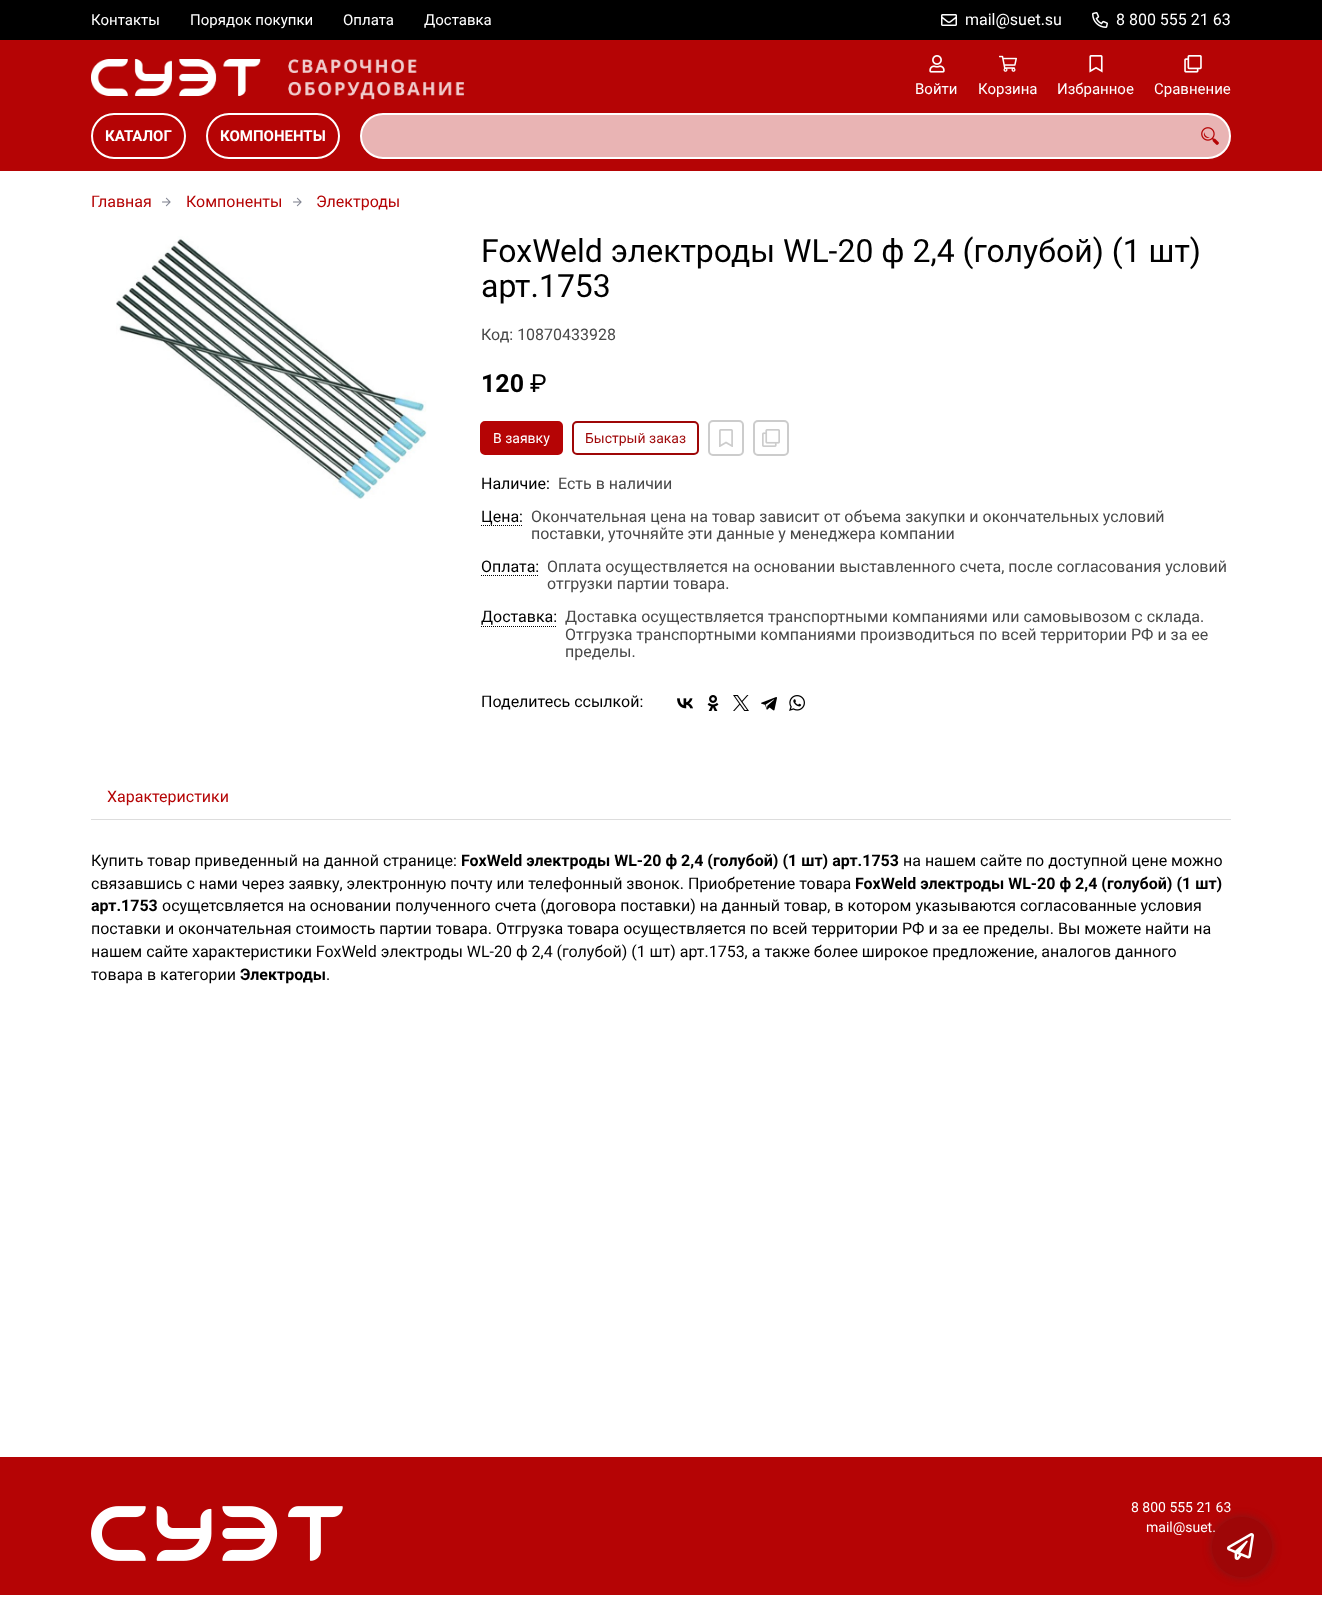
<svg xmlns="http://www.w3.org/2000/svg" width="1322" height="1607">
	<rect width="100%" height="100%" fill="#FFFFFF" />
	<rect x="0" y="0" width="1322" height="40" fill="#000000" />
	<g font-family="Roboto" font-size="15" fill="#FFFFFF">
		<text x="91" y="25">Контакты</text>
		<text x="190" y="25">Порядок покупки</text>
		<text x="343" y="25">Оплата</text>
		<text x="424" y="25">Доставка</text>
	</g>
	<image x="941" y="14" width="16" height="12" href="assets/img1.png" />
	<text x="965" y="25" font-family="Roboto" font-size="16" fill="#FFFFFF">mail@suet.su</text>
	<image x="1092" y="12" width="16" height="16" href="assets/img2.png" />
	<text x="1116" y="25" font-family="Roboto" font-size="16" fill="#FFFFFF">8 800 555 21 63</text>
	<rect x="0" y="40" width="1322" height="131" fill="#B50405" />
	<image x="91" y="59" width="374" height="41" href="assets/img3.png" />
	<image x="929" y="55" width="16" height="18" href="assets/img4.png" />
	<text x="915" y="94" font-family="Roboto" font-size="15" fill="#FFFFFF">Войти</text>
	<image x="999" y="55" width="18" height="17" href="assets/img5.png" />
	<text x="978" y="94" font-family="Roboto" font-size="15" fill="#FFFFFF">Корзина</text>
	<image x="1089" y="55" width="14" height="18" href="assets/img6.png" />
	<text x="1057" y="94" font-family="Roboto" font-size="15" fill="#FFFFFF">Избранное</text>
	<image x="1184" y="55" width="18" height="18" href="assets/img7.png" />
	<text x="1154" y="94" font-family="Roboto" font-size="15" fill="#FFFFFF">Сравнение</text>
	<rect x="92" y="114" width="93" height="44" rx="22" fill="none" stroke="#FFFFFF" stroke-width="2" />
	<text x="105" y="141" font-family="Roboto" font-size="15" font-weight="700" fill="#FFFFFF">КАТАЛОГ</text>
	<rect x="207" y="114" width="132" height="44" rx="22" fill="none" stroke="#FFFFFF" stroke-width="2" />
	<text x="220" y="141" font-family="Roboto" font-size="15" font-weight="700" fill="#FFFFFF">КОМПОНЕНТЫ</text>
	<rect x="361" y="114" width="869" height="44" rx="22" fill="#E9B4B4" stroke="#FFFFFF" stroke-width="2" />
	<image x="1201" y="127" width="18" height="18" href="assets/img8.png" />
	<text x="91" y="207" font-family="Roboto" font-size="16" fill="#B50405">Главная</text>
	<image x="162" y="197" width="9" height="10" href="assets/img9.png" />
	<text x="186" y="207" font-family="Roboto" font-size="16" fill="#B50405">Компоненты</text>
	<image x="293" y="197" width="9" height="10" href="assets/img9.png" />
	<text x="316" y="207" font-family="Roboto" font-size="16" fill="#B50405">Электроды</text>
	<image x="116" y="236" width="311" height="263" href="assets/img10.png" />
	<g font-family="Roboto" font-size="32" fill="#000000">
		<text x="481" y="262">FoxWeld электроды WL-20 ф 2,4 (голубой) (1 шт)</text>
		<text x="481" y="297">арт.1753</text>
	</g>
	<text x="481" y="340" font-family="Roboto" font-size="16" fill="#484848">Код: 10870433928</text>
	<text x="481" y="392" font-family="Roboto" font-size="25" font-weight="700" fill="#000000">120</text>
	<text x="530" y="392" font-family="'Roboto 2'" font-size="25" fill="#000000">₽</text>
	<rect x="481" y="422" width="81" height="32" rx="4" fill="#B50405" />
	<rect x="481" y="422" width="81" height="32" rx="4" fill="none" stroke="#B50405" stroke-width="2" />
	<text x="493" y="443" font-family="Roboto" font-size="14" fill="#FFFFFF">В заявку</text>
	<rect x="573" y="422" width="125" height="32" rx="4" fill="none" stroke="#9E0607" stroke-width="2" />
	<text x="585" y="443" font-family="Roboto" font-size="14" fill="#9E0607">Быстрый заказ</text>
	<image x="719" y="429" width="14" height="18" href="assets/img11.png" />
	<rect x="709" y="421" width="34" height="34" rx="4" fill="none" stroke="#CCCCCC" stroke-width="2" />
	<image x="762" y="429" width="18" height="18" href="assets/img12.png" />
	<rect x="754" y="421" width="34" height="34" rx="4" fill="none" stroke="#CCCCCC" stroke-width="2" />
	<text x="481" y="489" font-family="Roboto" font-size="16" fill="#000000">Наличие:</text>
	<text x="558" y="489" font-family="Roboto" font-size="16" fill="#484848">Есть в наличии</text>
	<text x="481" y="522" font-family="Roboto" font-size="16" fill="#000000">Цена:</text>
	<path d="M481 525.5H523" fill="none" stroke="#000000" stroke-dasharray="1 1" />
	<g font-family="Roboto" font-size="16" fill="#484848">
		<text x="531" y="522">Окончательная цена на товар зависит от объема закупки и окончательных условий</text>
		<text x="531" y="539">поставки, уточняйте эти данные у менеджера компании</text>
	</g>
	<text x="481" y="572" font-family="Roboto" font-size="16" fill="#000000">Оплата:</text>
	<path d="M481 575.5H539" fill="none" stroke="#000000" stroke-dasharray="1 1" />
	<g font-family="Roboto" font-size="16" fill="#484848">
		<text x="547" y="572">Оплата осуществляется на основании выставленного счета, после согласования условий</text>
		<text x="547" y="589">отгрузки партии товара.</text>
	</g>
	<text x="481" y="622" font-family="Roboto" font-size="16" fill="#000000">Доставка:</text>
	<path d="M481 626.5H557" fill="none" stroke="#000000" stroke-dasharray="1 1" />
	<g font-family="Roboto" font-size="16" fill="#484848">
		<text x="565" y="622">Доставка осуществляется транспортными компаниями или самовывозом с склада.</text>
		<text x="565" y="640">Отгрузка транспортными компаниями производиться по всей территории РФ и за ее</text>
		<text x="565" y="657">пределы.</text>
	</g>
	<text x="481" y="707" font-family="Roboto" font-size="16" fill="#000000">Поделитесь ссылкой:</text>
	<image x="677" y="698" width="16" height="11" href="assets/img13.png" />
	<image x="707" y="695" width="12" height="16" href="assets/img14.png" />
	<image x="733" y="695" width="16" height="16" href="assets/img15.png" />
	<image x="761" y="697" width="16" height="14" href="assets/img16.png" />
	<image x="789" y="695" width="16" height="16" href="assets/img17.png" />
	<rect x="91" y="819" width="1140" height="1" fill="#DDDDDD" />
	<text x="107" y="802" font-family="Roboto" font-size="16" fill="#B50405">Характеристики</text>
	<text x="91" y="866" font-family="Roboto" font-size="16" fill="#000000">Купить товар приведенный на данной странице:</text>
	<text x="461" y="866" font-family="Roboto" font-size="16" font-weight="700" fill="#000000">FoxWeld электроды WL-20 ф 2,4 (голубой) (1 шт) арт.1753</text>
	<g font-family="Roboto" font-size="16" fill="#000000">
		<text x="903" y="866">на нашем сайте по доступной цене можно</text>
		<text x="91" y="889">связавшись с нами через заявку, электронную почту или телефонный звонок. Приобретение товара</text>
	</g>
	<g font-family="Roboto" font-size="16" font-weight="700" fill="#000000">
		<text x="855" y="889">FoxWeld электроды WL-20 ф 2,4 (голубой) (1 шт)</text>
		<text x="91" y="911">арт.1753</text>
	</g>
	<g font-family="Roboto" font-size="16" fill="#000000">
		<text x="162" y="911">осущетсвляется на основании полученного счета (договора поставки) на данный товар, в котором указываются согласованные условия</text>
		<text x="91" y="934">поставки и окончательная стоимость партии товара. Отгрузка товара осуществляется по всей территории РФ и за ее пределы. Вы можете найти на</text>
		<text x="91" y="957">нашем сайте характеристики FoxWeld электроды WL-20 ф 2,4 (голубой) (1 шт) арт.1753, а также более широкое предложение, аналогов данного</text>
		<text x="91" y="980">товара в категории</text>
	</g>
	<text x="240" y="980" font-family="Roboto" font-size="16" font-weight="700" fill="#000000">Электроды</text>
	<text x="326" y="980" font-family="Roboto" font-size="16" fill="#000000">.</text>
	<rect x="0" y="1457" width="1322" height="138" fill="#B50405" />
	<image x="91" y="1506" width="252" height="55" href="assets/img18.png" />
	<g font-family="Roboto" font-size="14" fill="#FFFFFF">
		<text x="1131" y="1512">8 800 555 21 63</text>
		<text x="1146" y="1532">mail@suet.</text>
	</g>
	<rect x="1212" y="1517" width="60" height="60" rx="30" fill="#323232" fill-opacity="0.4" filter="blur(5px)" />
	<circle cx="1242" cy="1547" r="30" fill="#9E0607" />
	<image x="1227" y="1533" width="27" height="27" href="assets/img19.png" />
</svg>
